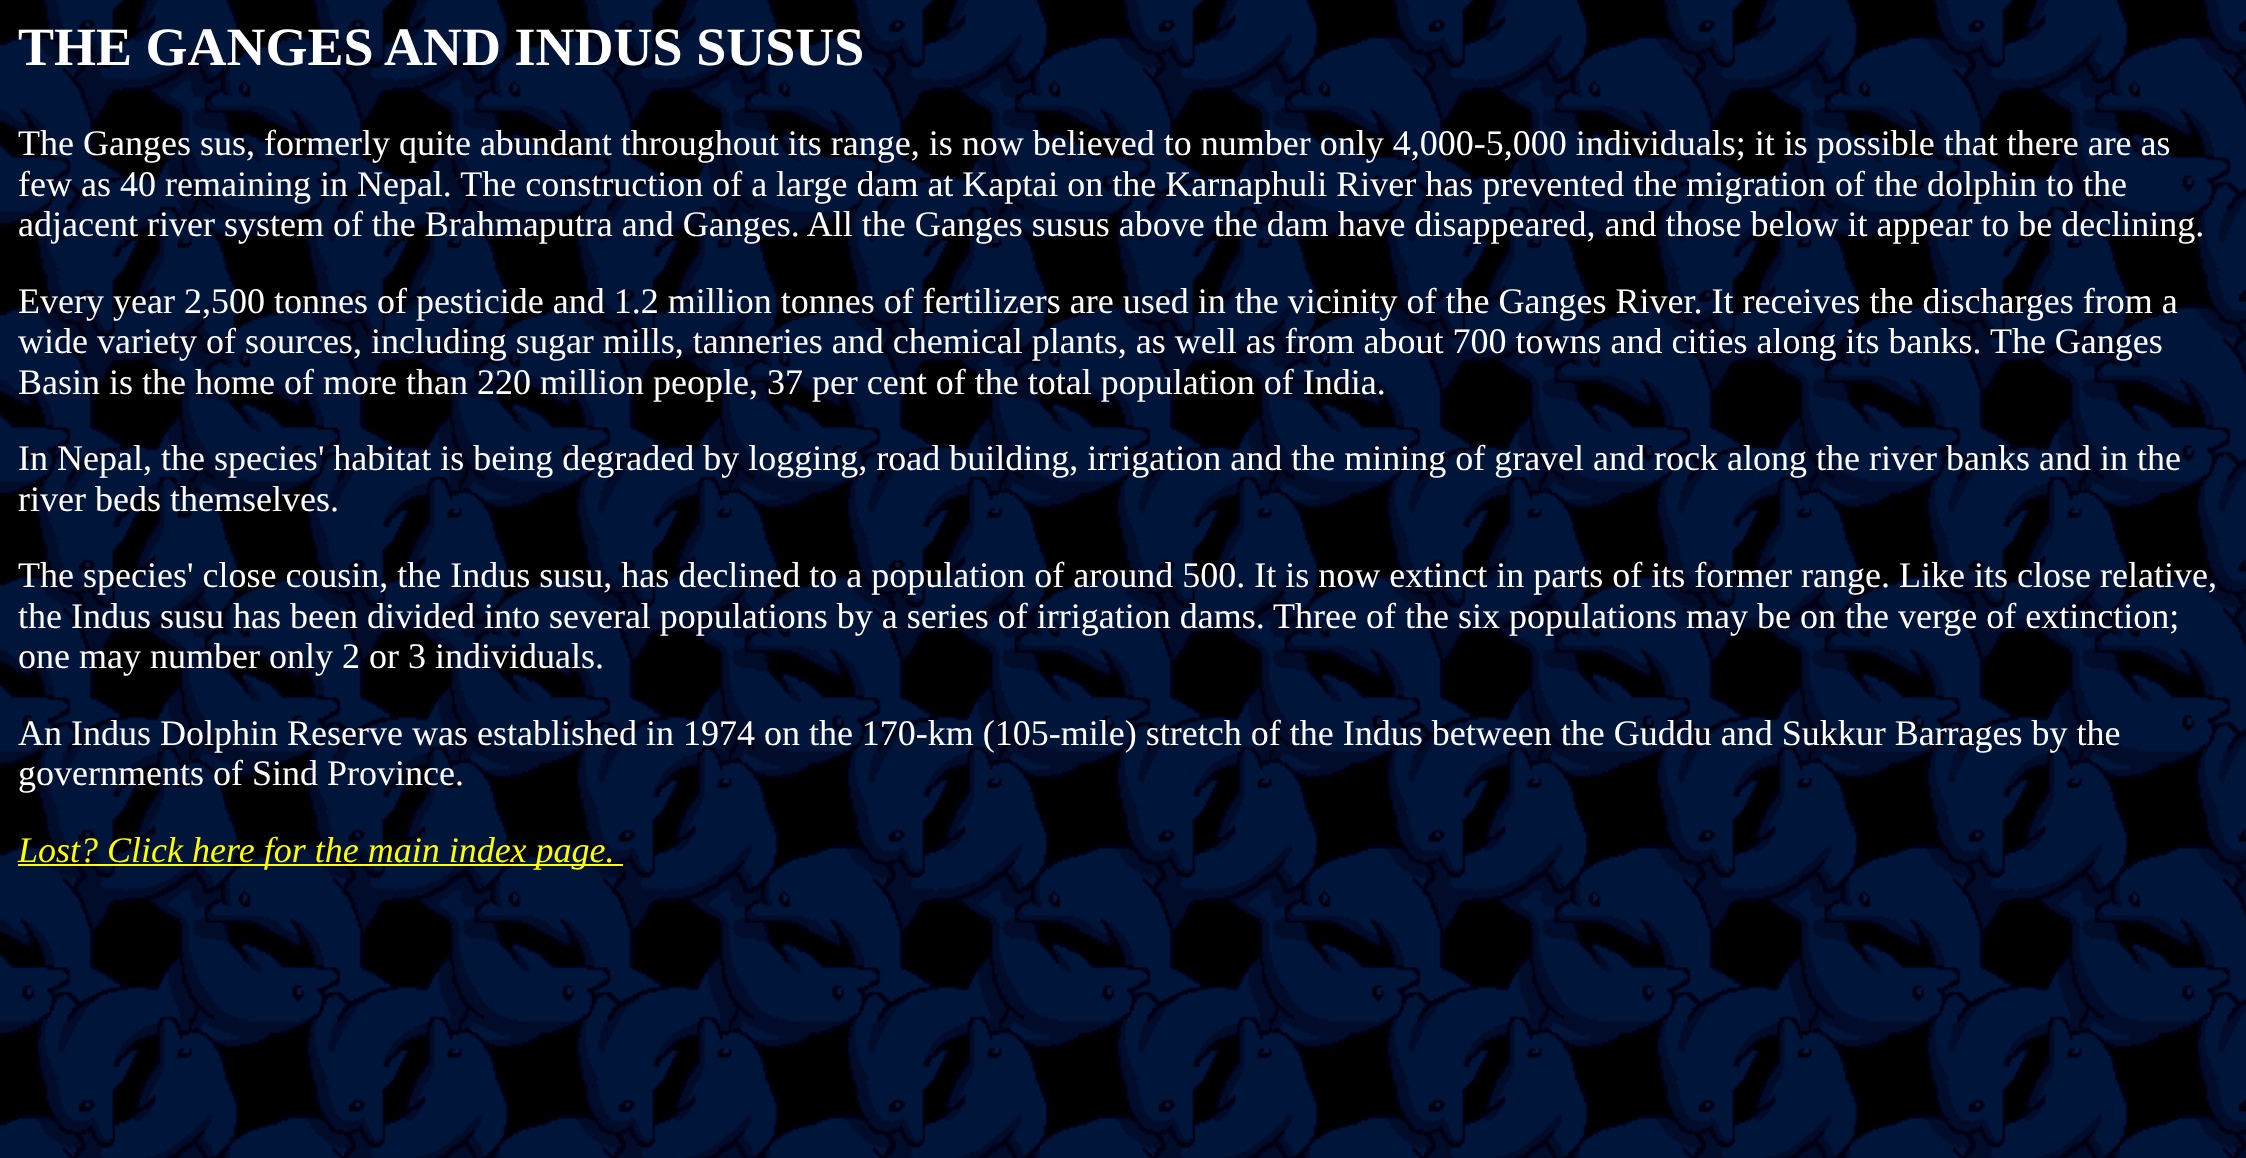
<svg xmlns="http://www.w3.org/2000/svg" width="2246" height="1158">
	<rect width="100%" height="100%" fill="#FFFFFF" />
	<image x="0" y="0" width="2246" height="1158" href="assets/img1.png" />
	<text x="18" y="65" font-family="Liberation Serif" font-size="54" font-weight="700" fill="#FFFFFF">THE GANGES AND INDUS SUSUS</text>
	<g font-family="Liberation Serif" font-size="36" fill="#FFFFFF">
		<text x="18" y="155">The Ganges sus, formerly quite abundant throughout its range, is now believed to number only 4,000-5,000 individuals; it is possible that there are as</text>
		<text x="18" y="196">few as 40 remaining in Nepal. The construction of a large dam at Kaptai on the Karnaphuli River has prevented the migration of the dolphin to the</text>
		<text x="18" y="236">adjacent river system of the Brahmaputra and Ganges. All the Ganges susus above the dam have disappeared, and those below it appear to be declining.</text>
		<text x="18" y="313">Every year 2,500 tonnes of pesticide and 1.2 million tonnes of fertilizers are used in the vicinity of the Ganges River. It receives the discharges from a</text>
		<text x="18" y="353">wide variety of sources, including sugar mills, tanneries and chemical plants, as well as from about 700 towns and cities along its banks. The Ganges</text>
		<text x="18" y="394">Basin is the home of more than 220 million people, 37 per cent of the total population of India.</text>
		<text x="18" y="470">In Nepal, the species' habitat is being degraded by logging, road building, irrigation and the mining of gravel and rock along the river banks and in the</text>
		<text x="18" y="511">river beds themselves.</text>
		<text x="18" y="587">The species' close cousin, the Indus susu, has declined to a population of around 500. It is now extinct in parts of its former range. Like its close relative,</text>
		<text x="18" y="628">the Indus susu has been divided into several populations by a series of irrigation dams. Three of the six populations may be on the verge of extinction;</text>
		<text x="18" y="668">one may number only 2 or 3 individuals.</text>
		<text x="18" y="745">An Indus Dolphin Reserve was established in 1974 on the 170-km (105-mile) stretch of the Indus between the Guddu and Sukkur Barrages by the</text>
		<text x="18" y="785">governments of Sind Province.</text>
	</g>
	<rect x="18" y="864" width="605" height="2" fill="#FFFF00" />
	<text x="18" y="862" font-family="Liberation Serif" font-size="36" font-style="italic" fill="#FFFF00">Lost? Click here for the main index page.</text>
</svg>
